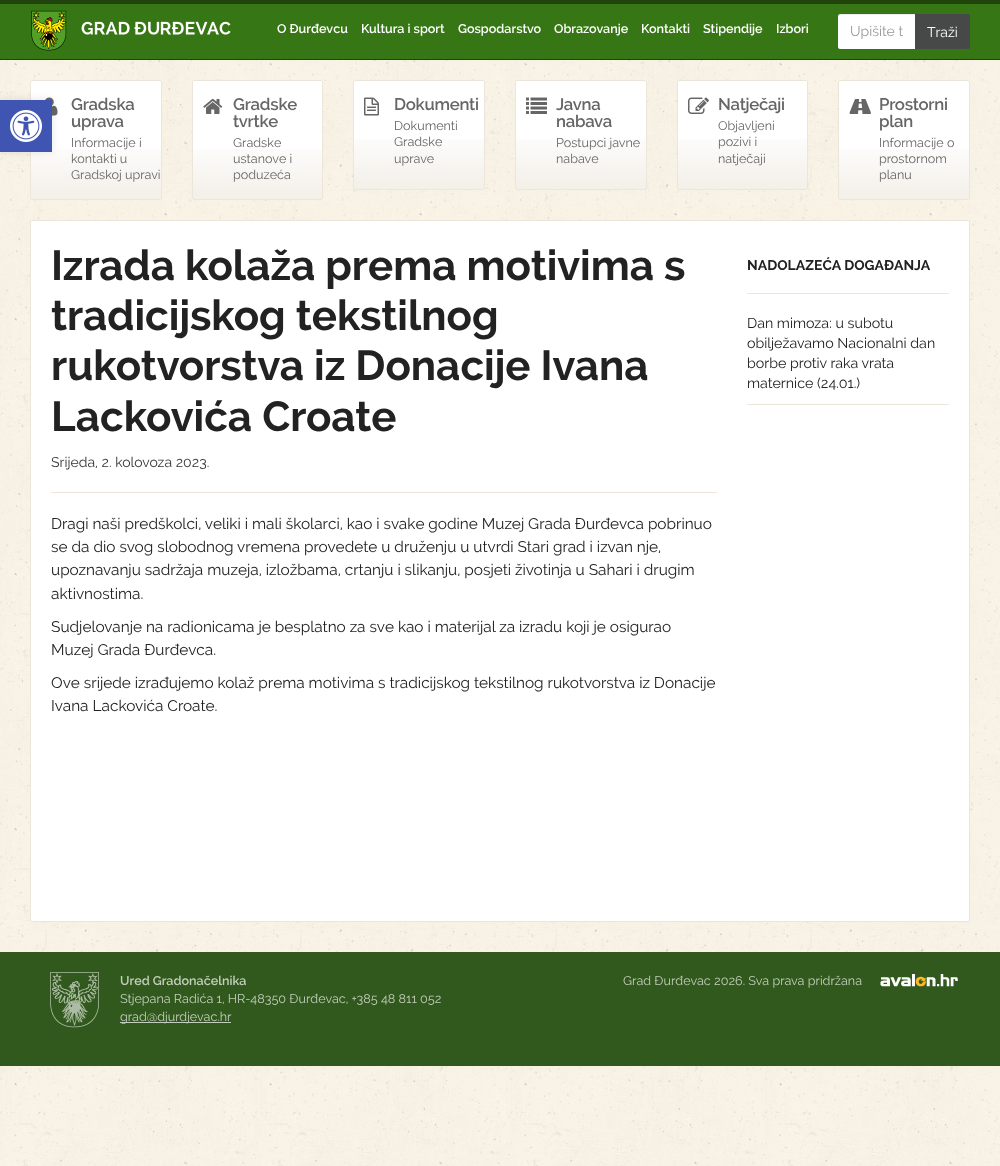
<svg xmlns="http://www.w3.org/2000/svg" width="1000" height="1166">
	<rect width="100%" height="100%" fill="#FFFFFF" />
	<image x="0" y="60" width="1000" height="1106" href="assets/img1.png" />
	<rect x="0" y="4" width="1000" height="55" fill="#367614" />
	<rect x="0" y="0" width="1000" height="4" fill="#20440B" />
	<rect x="0" y="59" width="1000" height="1" fill="#20440B" />
	<image x="31" y="10" width="200" height="41" href="assets/img2.png" />
	<g font-family="Raleway" font-size="12.6" font-weight="600" fill="#FFFFFF">
		<text x="277" y="33">O Đurđevcu</text>
		<text x="361" y="33">Kultura i sport</text>
		<text x="458" y="33">Gospodarstvo</text>
		<text x="554" y="33">Obrazovanje</text>
		<text x="641" y="33">Kontakti</text>
		<text x="703" y="33">Stipendije</text>
		<text x="776" y="33">Izbori</text>
	</g>
	<path d="M840 14H915V49H840C839 49 838 48 838 47V16C838 15 839 14 840 14Z" fill="#FFFFFF" />
	<path d="M840 15H915V14H840C839 14 838 15 838 16V17C838 16 839 15 840 15Z" fill="#000000" fill-opacity="0.07" />
	<text x="850" y="36" font-family="Raleway" font-size="14" fill="#999999">Upišite t</text>
	<path d="M915 14H968C969 14 970 15 970 16V47C970 48 969 49 968 49H915Z" fill="#474949" />
	<text x="927" y="37" font-family="Raleway" font-size="14" fill="#FFFFFF">Traži</text>
	<rect x="30" y="80" width="132" height="120" rx="2" fill="#FFFFFF" />
	<image x="30" y="149" width="132" height="50" href="assets/img4.png" />
	<rect x="30.5" y="80.5" width="131" height="119" rx="1.5" fill="none" stroke="#ECE6DA" />
	<image x="45" y="97" width="13" height="19" href="assets/img5.png" />
	<rect x="0" y="100" width="52" height="52" fill="#000000" fill-opacity="0.1" filter="blur(5px)" />
	<rect x="0" y="100" width="52" height="52" fill="#4054B2" />
	<image x="10" y="110" width="32" height="32" href="assets/img3.png" />
	<g font-family="Raleway" font-size="16.75" font-weight="600" letter-spacing="-0.25" fill="#666666">
		<text x="71" y="110">Gradska</text>
		<text x="71" y="127">uprava</text>
	</g>
	<g font-family="Raleway" font-size="12.6" fill="#666666">
		<text x="71" y="147">Informacije i</text>
		<text x="71" y="163">kontakti u</text>
		<text x="71" y="179">Gradskoj upravi</text>
	</g>
	<rect x="192" y="80" width="131" height="120" rx="2" fill="#FFFFFF" />
	<image x="192" y="149" width="131" height="50" href="assets/img6.png" />
	<rect x="192.5" y="80.5" width="130" height="119" rx="1.5" fill="none" stroke="#ECE6DA" />
	<image x="203" y="99" width="20" height="15" href="assets/img7.png" />
	<g font-family="Raleway" font-size="16.75" font-weight="600" letter-spacing="-0.25" fill="#666666">
		<text x="233" y="110">Gradske</text>
		<text x="233" y="127">tvrtke</text>
	</g>
	<g font-family="Raleway" font-size="12.6" fill="#666666">
		<text x="233" y="147">Gradske</text>
		<text x="233" y="163">ustanove i</text>
		<text x="233" y="179">poduzeća</text>
	</g>
	<rect x="353" y="80" width="132" height="110" rx="2" fill="#FFFFFF" />
	<image x="353" y="139" width="132" height="50" href="assets/img4.png" />
	<rect x="353.5" y="80.5" width="131" height="109" rx="1.5" fill="none" stroke="#ECE6DA" />
	<image x="364" y="97" width="15" height="19" href="assets/img8.png" />
	<text x="394" y="110" font-family="Raleway" font-size="16.75" font-weight="600" letter-spacing="-0.25" fill="#666666">Dokumenti</text>
	<g font-family="Raleway" font-size="12.6" fill="#666666">
		<text x="394" y="130">Dokumenti</text>
		<text x="394" y="146">Gradske</text>
		<text x="394" y="163">uprave</text>
	</g>
	<rect x="515" y="80" width="132" height="110" rx="2" fill="#FFFFFF" />
	<image x="515" y="139" width="132" height="50" href="assets/img4.png" />
	<rect x="515.5" y="80.5" width="131" height="109" rx="1.5" fill="none" stroke="#ECE6DA" />
	<image x="526" y="97" width="21" height="17" href="assets/img9.png" />
	<g font-family="Raleway" font-size="16.75" font-weight="600" letter-spacing="-0.25" fill="#666666">
		<text x="556" y="110">Javna</text>
		<text x="556" y="127">nabava</text>
	</g>
	<g font-family="Raleway" font-size="12.6" fill="#666666">
		<text x="556" y="147">Postupci javne</text>
		<text x="556" y="163">nabave</text>
	</g>
	<rect x="677" y="80" width="131" height="110" rx="2" fill="#FFFFFF" />
	<image x="677" y="139" width="131" height="50" href="assets/img6.png" />
	<rect x="677.5" y="80.5" width="130" height="109" rx="1.5" fill="none" stroke="#ECE6DA" />
	<image x="688" y="97" width="21" height="17" href="assets/img10.png" />
	<text x="718" y="110" font-family="Raleway" font-size="16.75" font-weight="600" letter-spacing="-0.25" fill="#666666">Natječaji</text>
	<g font-family="Raleway" font-size="12.6" fill="#666666">
		<text x="718" y="130">Objavljeni</text>
		<text x="718" y="146">pozivi i</text>
		<text x="718" y="163">natječaji</text>
	</g>
	<rect x="838" y="80" width="132" height="120" rx="2" fill="#FFFFFF" />
	<image x="838" y="149" width="132" height="50" href="assets/img4.png" />
	<rect x="838.5" y="80.5" width="131" height="119" rx="1.5" fill="none" stroke="#ECE6DA" />
	<image x="849" y="99" width="22" height="15" href="assets/img11.png" />
	<g font-family="Raleway" font-size="16.75" font-weight="600" letter-spacing="-0.25" fill="#666666">
		<text x="879" y="110">Prostorni</text>
		<text x="879" y="127">plan</text>
	</g>
	<g font-family="Raleway" font-size="12.6" fill="#666666">
		<text x="879" y="147">Informacije o</text>
		<text x="879" y="163">prostornom</text>
		<text x="879" y="179">planu</text>
	</g>
	<rect x="30.5" y="220.5" width="939" height="701" rx="1.5" fill="#FFFFFF" stroke="#ECE6DA" />
	<g font-family="Raleway" font-size="42" font-weight="700" fill="#222222">
		<text x="51" y="280">Izrada kolaža prema motivima s</text>
		<text x="51" y="330">tradicijskog tekstilnog</text>
		<text x="51" y="380">rukotvorstva iz Donacije Ivana</text>
		<text x="51" y="431">Lackovića Croate</text>
	</g>
	<text x="51" y="467" font-family="Raleway" font-size="14" fill="#333333">Srijeda, 2. kolovoza 2023.</text>
	<rect x="51" y="492" width="666" height="1" fill="#ECE6DA" />
	<g font-family="Raleway" font-size="15.4" fill="#222222">
		<text x="51" y="529">Dragi naši predškolci, veliki i mali školarci, kao i svake godine Muzej Grada Đurđevca pobrinuo</text>
		<text x="51" y="552">se da dio svog slobodnog vremena provedete u druženju u utvrdi Stari grad i izvan nje,</text>
		<text x="51" y="575">upoznavanju sadržaja muzeja, izložbama, crtanju i slikanju, posjeti životinja u Sahari i drugim</text>
		<text x="51" y="599">aktivnostima.</text>
		<text x="51" y="632">Sudjelovanje na radionicama je besplatno za sve kao i materijal za izradu koji je osigurao</text>
		<text x="51" y="655">Muzej Grada Đurđevca.</text>
		<text x="51" y="688">Ove srijede izrađujemo kolaž prema motivima s tradicijskog tekstilnog rukotvorstva iz Donacije</text>
		<text x="51" y="711">Ivana Lackovića Croate.</text>
	</g>
	<rect x="747" y="293" width="202" height="1" fill="#ECE6DA" />
	<text x="747" y="270" font-family="Raleway" font-size="14" font-weight="700" fill="#222222">NADOLAZEĆA DOGAĐANJA</text>
	<rect x="747" y="404" width="202" height="1" fill="#ECE6DA" />
	<g font-family="Raleway" font-size="14.25" fill="#222222">
		<text x="747" y="328">Dan mimoza: u subotu</text>
		<text x="747" y="348">obilježavamo Nacionalni dan</text>
		<text x="747" y="368">borbe protiv raka vrata</text>
		<text x="747" y="388">maternice (24.01.)</text>
	</g>
	<rect x="0" y="952" width="1000" height="114" fill="#32591D" />
	<image x="50" y="972" width="49" height="56" href="assets/img12.png" />
	<text x="120" y="985" font-family="Raleway" font-size="12.6" font-weight="600" fill="#C2CEBC">Ured Gradonačelnika</text>
	<text x="120" y="1003" font-family="Raleway" font-size="12.6" fill="#C2CEBC">Stjepana Radića 1, HR-48350 Đurđevac, +385 48 811 052</text>
	<rect x="120" y="1022" width="111" height="1" fill="#C2CEBC" />
	<g font-family="Raleway" font-size="12.6" fill="#C2CEBC">
		<text x="120" y="1021">grad@djurdjevac.hr</text>
		<text x="623" y="985">Grad Đurđevac 2026. Sva prava pridržana</text>
	</g>
	<image x="880" y="974" width="78" height="13" href="assets/img13.png" />
</svg>
